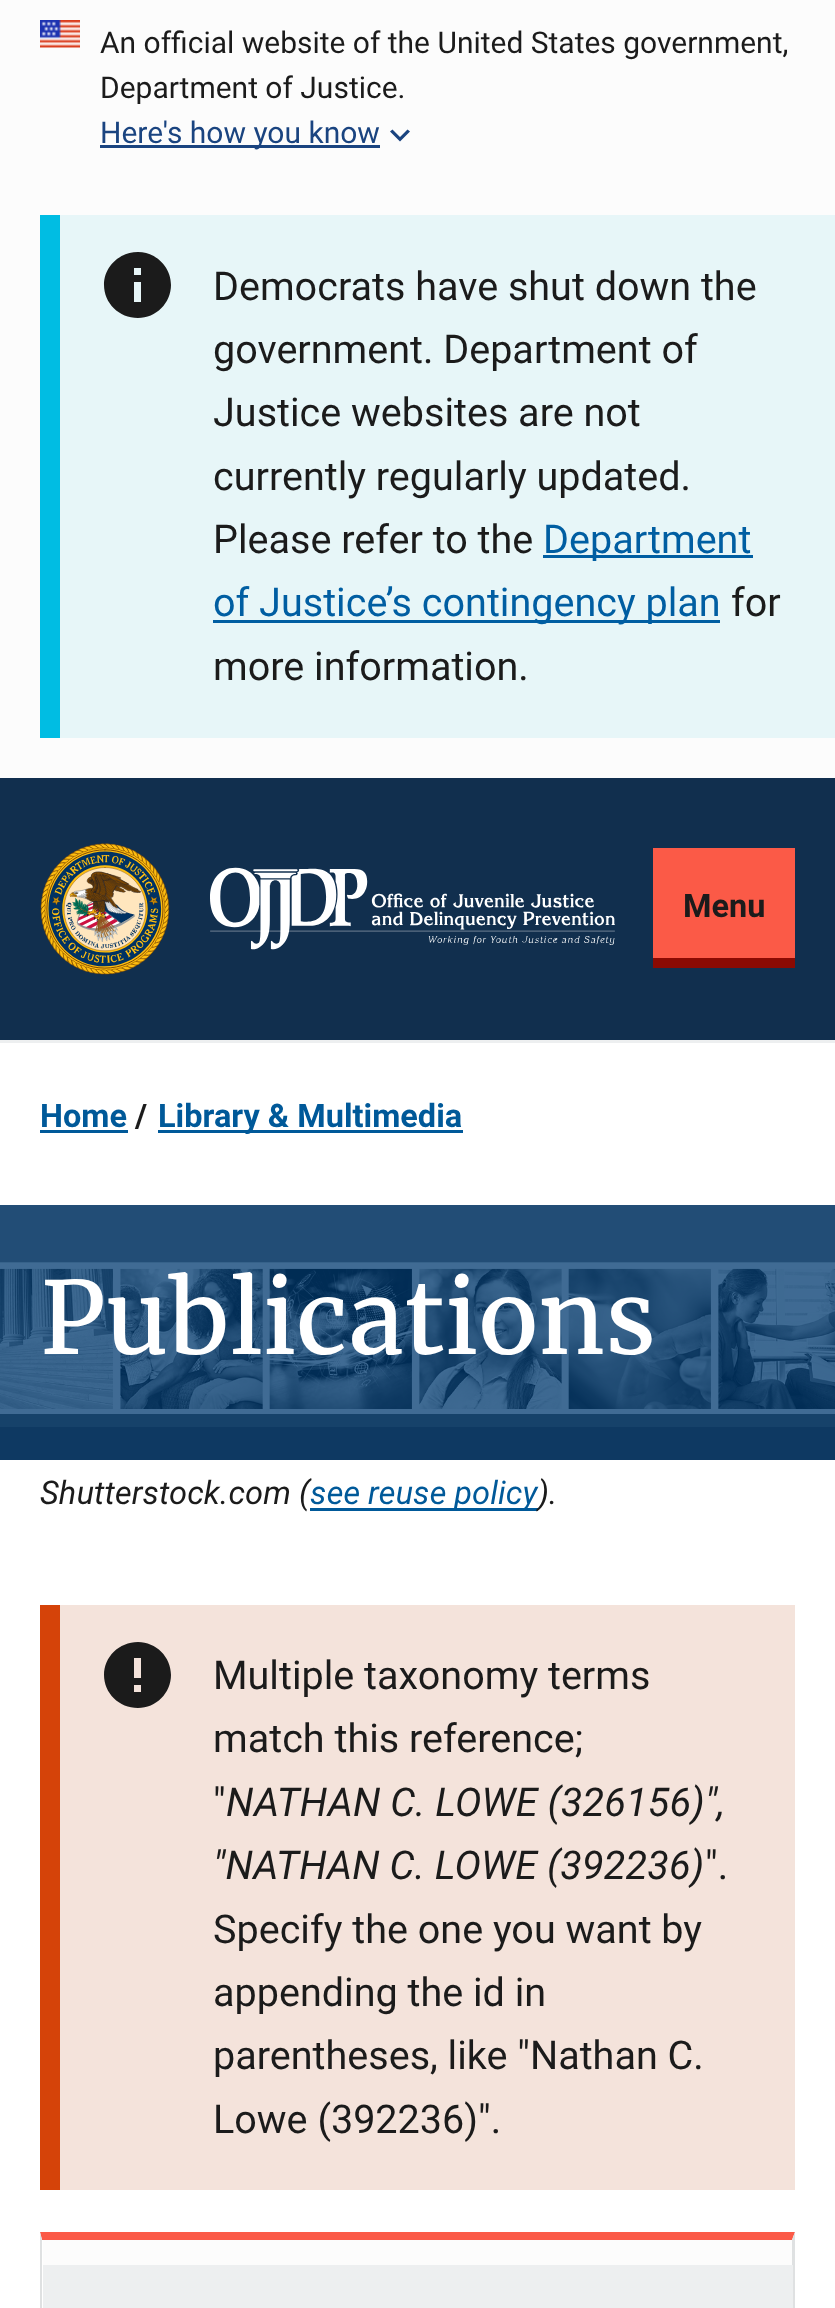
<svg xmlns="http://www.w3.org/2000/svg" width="835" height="2308">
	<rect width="100%" height="100%" fill="#FFFFFF" />
	<rect x="0" y="0" width="835" height="778" fill="#FCFCFC" />
	<image x="40" y="20" width="40" height="28" href="assets/img1.png" />
	<g font-family="Roboto" font-size="30" fill="#1B1B1B">
		<text x="100" y="53">An official website of the United States government,</text>
		<text x="100" y="98">Department of Justice.</text>
	</g>
	<rect x="100" y="145" width="280" height="3" fill="#1A4480" />
	<text x="100" y="143" font-family="Roboto" font-size="30" fill="#1A4480">Here's how you know</text>
	<path d="M407.5 129.5L400 137L392.5 129.5L390 131.5L400 141.5L410 131.5Z" fill="#1A4480" />
	<rect x="60" y="215" width="775" height="523" fill="#E7F6F8" />
	<rect x="40" y="215" width="20" height="523" fill="#00BDE3" />
	<path d="M138 252C119 252 104 267 104 285C104 303 119 318 138 318C156 318 171 303 171 285C171 267 156 252 138 252ZM141 302H134V282H141ZM141 275H134V268H141Z" fill="#1B1B1B" />
	<g font-family="Roboto" font-size="39.6" fill="#1B1B1B">
		<text x="213" y="300">Democrats have shut down the</text>
		<text x="213" y="363">government. Department of</text>
		<text x="213" y="426">Justice websites are not</text>
		<text x="213" y="490">currently regularly updated.</text>
		<text x="213" y="553">Please refer to the</text>
	</g>
	<rect x="543" y="555" width="210" height="3" fill="#005EA2" />
	<text x="543" y="553" font-family="Roboto" font-size="39.6" fill="#005EA2">Department</text>
	<rect x="213" y="620" width="507" height="3" fill="#005EA2" />
	<text x="213" y="616" font-family="Roboto" font-size="39.6" fill="#005EA2">of Justice’s contingency plan</text>
	<g font-family="Roboto" font-size="39.6" fill="#1B1B1B">
		<text x="731" y="616">for</text>
		<text x="213" y="680">more information.</text>
	</g>
	<rect x="0" y="778" width="835" height="262" fill="#112F4E" />
	<rect x="0" y="1040" width="835" height="3" fill="#EDEFF0" />
	<image x="40" y="843" width="130" height="132" href="assets/img2.png" />
	<image x="210" y="867" width="405" height="83" href="assets/img3.png" />
	<rect x="653" y="848" width="142" height="110" fill="#FB5A47" />
	<text x="683" y="917" font-family="Roboto" font-size="32.5" font-weight="700" fill="#1B1B1B">Menu</text>
	<rect x="653" y="958" width="142" height="10" fill="#8B0A03" />
	<text x="40" y="1127" font-family="Roboto" font-size="32.5" font-weight="700" fill="#005999">Home</text>
	<rect x="40" y="1130" width="88" height="3" fill="#005999" />
	<text x="135" y="1127" font-family="Roboto" font-size="32.5" font-weight="700" fill="#1B1B1B">/</text>
	<rect x="158" y="1130" width="305" height="3" fill="#005999" />
	<text x="158" y="1127" font-family="Roboto" font-size="32.5" font-weight="700" fill="#005999">Library &amp; Multimedia</text>
	<image x="0" y="1205" width="835" height="255" href="assets/img4.png" />
	<text x="40" y="1354" font-family="Merriweather" font-size="100" fill="#FFFFFF">Publications</text>
	<text x="40" y="1504" font-family="Roboto" font-size="32.5" font-style="italic" fill="#1B1B1B">Shutterstock.com (</text>
	<rect x="310" y="1508" width="228" height="3" fill="#005999" />
	<text x="310" y="1504" font-family="Roboto" font-size="32.5" font-style="italic" fill="#005999">see reuse policy</text>
	<text x="538" y="1504" font-family="Roboto" font-size="32.5" font-style="italic" fill="#1B1B1B">).</text>
	<rect x="60" y="1605" width="735" height="585" fill="#F4E3DB" />
	<rect x="40" y="1605" width="20" height="585" fill="#D54309" />
	<path d="M138 1642C119 1642 104 1657 104 1675C104 1693 119 1708 138 1708C156 1708 171 1693 171 1675C171 1657 156 1642 138 1642ZM141 1692H134V1685H141ZM141 1678H134V1658H141Z" fill="#1B1B1B" />
	<g font-family="Roboto" font-size="39.6" fill="#1B1B1B">
		<text x="213" y="1689">Multiple taxonomy terms</text>
		<text x="213" y="1752">match this reference;</text>
		<text x="213" y="1816">"</text>
	</g>
	<g font-family="Roboto" font-size="39.6" font-style="italic" fill="#1B1B1B">
		<text x="226" y="1816">NATHAN C. LOWE (326156)",</text>
		<text x="213" y="1879">"NATHAN C. LOWE (392236)</text>
	</g>
	<g font-family="Roboto" font-size="39.6" fill="#1B1B1B">
		<text x="705" y="1879">".</text>
		<text x="213" y="1943">Specify the one you want by</text>
		<text x="213" y="2006">appending the id in</text>
		<text x="213" y="2069">parentheses, like "Nathan C.</text>
		<text x="213" y="2133">Lowe (392236)".</text>
	</g>
	<rect x="43" y="2240" width="749" height="25" fill="#FCFCFC" />
	<path d="M40 2232H795L792 2240H42Z" fill="#FB5A47" />
	<path d="M795 2232V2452L792 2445V2240Z" fill="#DFE1E2" />
	<path d="M40 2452V2232L42 2240V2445Z" fill="#DFE1E2" />
	<rect x="43" y="2265" width="750" height="43" fill="#EDEFF0" />
</svg>
